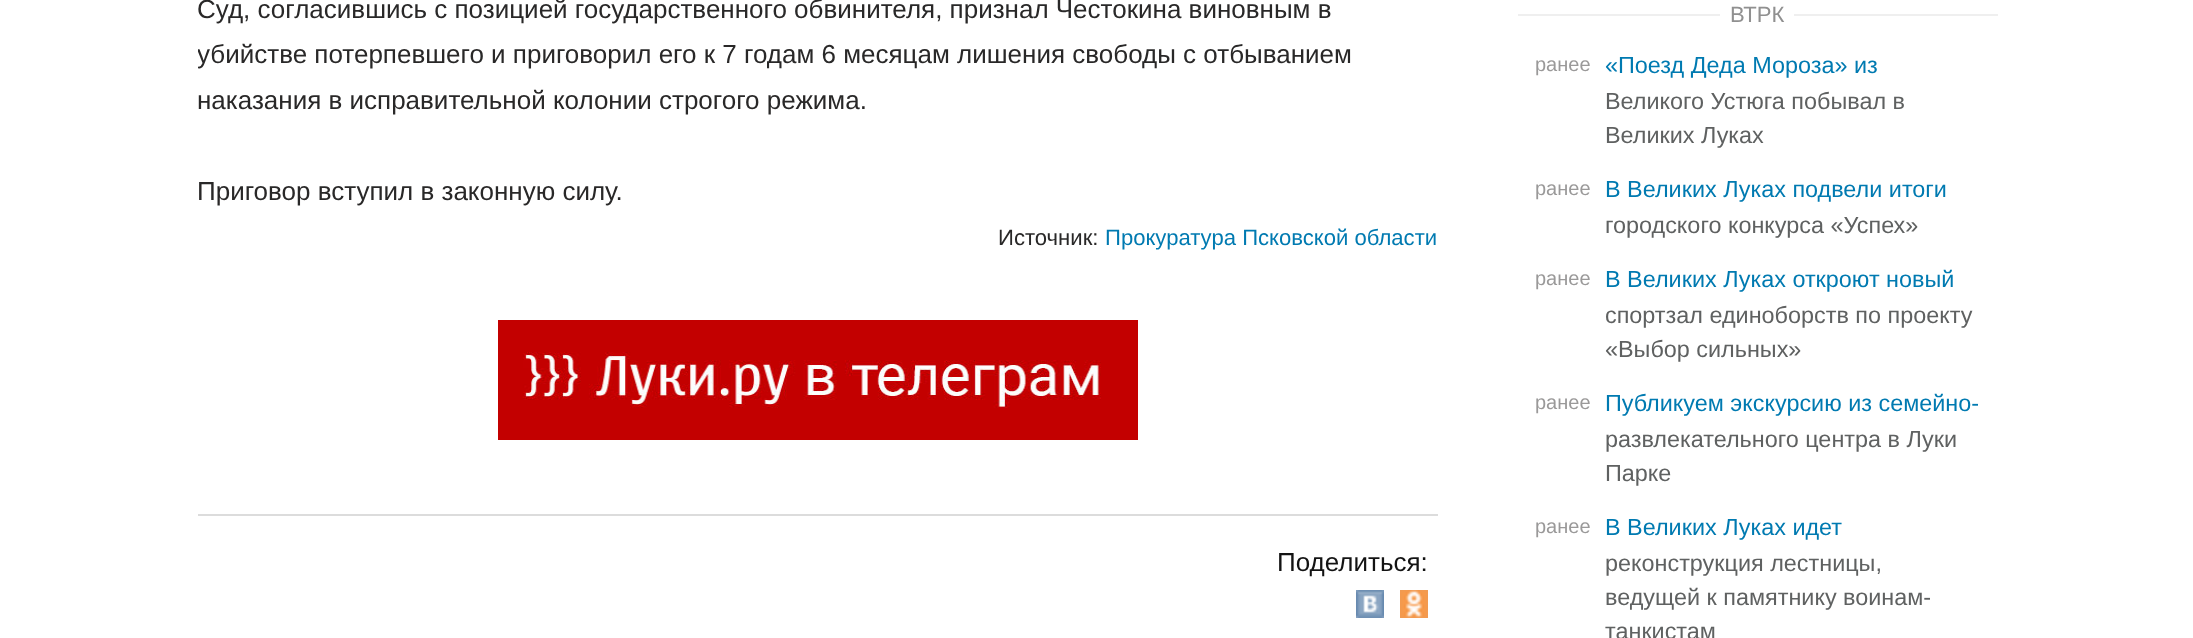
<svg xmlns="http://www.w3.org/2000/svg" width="2193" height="638">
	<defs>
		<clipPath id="clip1"><rect x="198" y="0" width="1240" height="216" /></clipPath>
	</defs>
	<rect width="100%" height="100%" fill="#FFFFFF" />
	<text x="197" y="18" font-family="Liberation Sans" font-size="26" fill="#292828">Суд, согласившись с позицией государственного обвинителя, признал Честокина виновным в</text>
	<g clip-path="url(#clip1)">
		<text x="197" y="63" font-family="Liberation Sans" font-size="26" fill="#292828">убийстве потерпевшего и приговорил его к 7 годам 6 месяцам лишения свободы с отбыванием</text>
	</g>
	<g font-family="Liberation Sans" font-size="26" fill="#292828">
		<text x="197" y="109">наказания в исправительной колонии строгого режима.</text>
		<text x="197" y="200">Приговор вступил в законную силу.</text>
	</g>
	<text x="998" y="245" font-family="Liberation Sans" font-size="22.1" fill="#292828">Источник:</text>
	<text x="1105" y="245" font-family="Liberation Sans" font-size="22.1" fill="#007AB1">Прокуратура Псковской области</text>
	<image x="498" y="320" width="640" height="120" href="assets/img1.png" />
	<rect x="198" y="514" width="1240" height="2" fill="#DCDCDC" />
	<text x="1277" y="571" font-family="Liberation Sans" font-size="26" fill="#131313">Поделиться:</text>
	<image x="1356" y="590" width="28" height="28" href="assets/img2.png" />
	<image x="1400" y="590" width="28" height="28" href="assets/img3.png" />
	<rect x="1518" y="14" width="480" height="2" fill="#EFEFEF" />
	<rect x="1720" y="14" width="74" height="2" fill="#FFFFFF" />
	<text x="1730" y="22" font-family="Liberation Sans" font-size="22.1" fill="#909090">ВТРК</text>
	<text x="1535" y="71" font-family="Liberation Sans" font-size="20" fill="#9A9999">ранее</text>
	<text x="1605" y="73" font-family="Liberation Sans" font-size="23.4" fill="#007AB1">«Поезд Деда Мороза» из</text>
	<g font-family="Liberation Sans" font-size="23.4" fill="#5F6161">
		<text x="1605" y="109">Великого Устюга побывал в</text>
		<text x="1605" y="143">Великих Луках</text>
	</g>
	<text x="1535" y="195" font-family="Liberation Sans" font-size="20" fill="#9A9999">ранее</text>
	<text x="1605" y="197" font-family="Liberation Sans" font-size="23.4" fill="#007AB1">В Великих Луках подвели итоги</text>
	<text x="1605" y="233" font-family="Liberation Sans" font-size="23.4" fill="#5F6161">городского конкурса «Успех»</text>
	<text x="1535" y="285" font-family="Liberation Sans" font-size="20" fill="#9A9999">ранее</text>
	<text x="1605" y="287" font-family="Liberation Sans" font-size="23.4" fill="#007AB1">В Великих Луках откроют новый</text>
	<g font-family="Liberation Sans" font-size="23.4" fill="#5F6161">
		<text x="1605" y="323">спортзал единоборств по проекту</text>
		<text x="1605" y="357">«Выбор сильных»</text>
	</g>
	<text x="1535" y="409" font-family="Liberation Sans" font-size="20" fill="#9A9999">ранее</text>
	<text x="1605" y="411" font-family="Liberation Sans" font-size="23.4" fill="#007AB1">Публикуем экскурсию из семейно-</text>
	<g font-family="Liberation Sans" font-size="23.4" fill="#5F6161">
		<text x="1605" y="447">развлекательного центра в Луки</text>
		<text x="1605" y="481">Парке</text>
	</g>
	<text x="1535" y="533" font-family="Liberation Sans" font-size="20" fill="#9A9999">ранее</text>
	<text x="1605" y="535" font-family="Liberation Sans" font-size="23.4" fill="#007AB1">В Великих Луках идет</text>
	<g font-family="Liberation Sans" font-size="23.4" fill="#5F6161">
		<text x="1605" y="571">реконструкция лестницы,</text>
		<text x="1605" y="605">ведущей к памятнику воинам-</text>
		<text x="1605" y="639">танкистам</text>
	</g>
</svg>
